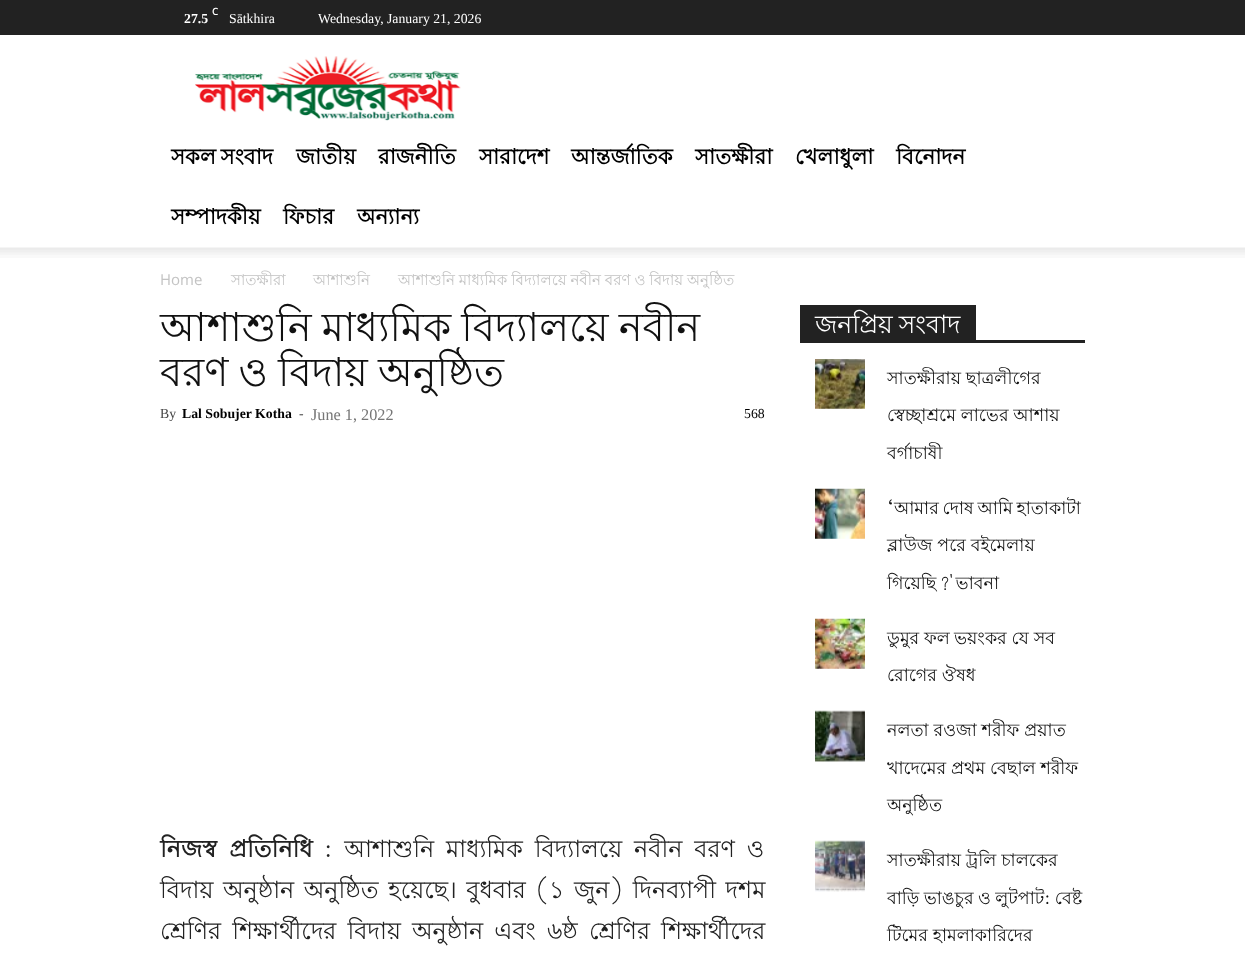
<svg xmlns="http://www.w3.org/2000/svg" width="1245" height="961">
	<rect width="100%" height="100%" fill="#FFFFFF" />
	<rect x="0" y="0" width="1245" height="35" fill="#222222" />
	<text x="212" y="15" font-family="Open Sans" font-size="10" font-weight="600" fill="#FFFFFF">C</text>
	<text x="184" y="23" font-family="Liberation Serif" font-size="13.75" font-weight="700" fill="#FFFFFF">27.5</text>
	<g font-family="Liberation Serif" font-size="13.75" fill="#FFFFFF">
		<text x="229" y="23">Sātkhira</text>
		<text x="318" y="23">Wednesday, January 21, 2026</text>
	</g>
	<image x="195" y="56" width="266" height="65" href="assets/img1.png" />
	<g font-family="Lohit Bengali" font-size="21.25" font-weight="700" fill="#000000">
		<text x="171" y="164" word-spacing="-1">সকল সংবাদ</text>
		<text x="296" y="164">জাতীয়</text>
		<text x="378" y="164">রাজনীতি</text>
		<text x="479" y="164">সারাদেশ</text>
		<text x="571" y="164">আন্তর্জাতিক</text>
		<text x="695" y="164">সাতক্ষীরা</text>
		<text x="795" y="164">খেলাধুলা</text>
		<text x="896" y="164">বিনোদন</text>
		<text x="171" y="224">সম্পাদকীয়</text>
		<text x="283" y="224">ফিচার</text>
		<text x="357" y="224">অন্যান্য</text>
	</g>
	<image x="0" y="247" width="1245" height="11" href="assets/img2.png" />
	<text x="160" y="285" font-family="Open Sans" font-size="15" fill="#C3C3C3">Home</text>
	<g font-family="Lohit Bengali" font-size="15" fill="#C3C3C3">
		<text x="231" y="285">সাতক্ষীরা</text>
		<text x="313" y="285">আশাশুনি</text>
		<text x="398" y="285" word-spacing="-0.25">আশাশুনি মাধ্যমিক বিদ্যালয়ে নবীন বরণ ও বিদায় অনুষ্ঠিত</text>
	</g>
	<g font-family="Lohit Bengali" font-size="40" fill="#111111">
		<text x="160" y="341" word-spacing="-1">আশাশুনি মাধ্যমিক বিদ্যালয়ে নবীন</text>
		<text x="160" y="386" word-spacing="-1">বরণ ও বিদায় অনুষ্ঠিত</text>
	</g>
	<text x="160" y="418" font-family="Liberation Serif" font-size="13.75" fill="#444444">By</text>
	<text x="182" y="418" font-family="Liberation Serif" font-size="13.75" font-weight="700" fill="#000000">Lal Sobujer Kotha</text>
	<text x="299" y="418" font-family="Liberation Serif" font-size="13.75" fill="#444444">-</text>
	<text x="311" y="420" font-family="Liberation Serif" font-size="16.25" fill="#767676">June 1, 2022</text>
	<text x="744" y="418" font-family="Liberation Serif" font-size="13.75" fill="#000000">568</text>
	<text x="160" y="857" word-spacing="6" font-family="Lohit Bengali" font-size="23.75" font-weight="700" fill="#222222">নিজস্ব প্রতিনিধি</text>
	<g font-family="Lohit Bengali" font-size="23.75" fill="#222222">
		<text x="324" y="857" word-spacing="5.25">: আশাশুনি মাধ্যমিক বিদ্যালয়ে নবীন বরণ ও</text>
		<text x="160" y="898" word-spacing="3">বিদায় অনুষ্ঠান অনুষ্ঠিত হয়েছে। বুধবার (১ জুন) দিনব্যাপী দশম</text>
		<text x="160" y="939" word-spacing="4.5">শ্রেণির শিক্ষার্থীদের বিদায় অনুষ্ঠান এবং ৬ষ্ঠ শ্রেণির শিক্ষার্থীদের</text>
	</g>
	<rect x="800" y="340" width="285" height="3" fill="#222222" />
	<rect x="800" y="305" width="176" height="35" fill="#222222" />
	<text x="815" y="333" word-spacing="-1" font-family="Lohit Bengali" font-size="25" fill="#FFFFFF">জনপ্রিয় সংবাদ</text>
	<image x="815" y="359" width="50" height="50" href="assets/img3.png" />
	<g font-family="Lohit Bengali" font-size="17.5" fill="#111111">
		<text x="887" y="384">সাতক্ষীরায় ছাত্রলীগের</text>
		<text x="887" y="421">স্বেচ্ছাশ্রমে লাভের আশায়</text>
		<text x="887" y="459">বর্গাচাষী</text>
	</g>
	<image x="815" y="488" width="50" height="51" href="assets/img4.png" />
	<g font-family="Lohit Bengali" font-size="17.5" fill="#111111">
		<text x="887" y="514" word-spacing="-1">‘আমার দোষ আমি হাতাকাটা</text>
		<text x="887" y="551">ব্লাউজ পরে বইমেলায়</text>
		<text x="887" y="589" word-spacing="-1">গিয়েছি?' ভাবনা</text>
	</g>
	<image x="815" y="618" width="50" height="51" href="assets/img5.png" />
	<g font-family="Lohit Bengali" font-size="17.5" fill="#111111">
		<text x="887" y="644">ডুমুর ফল</text>
		<text x="954" y="644">ভয়ংকর যে সব</text>
		<text x="887" y="681">রোগের ঔষধ</text>
	</g>
	<image x="815" y="710" width="50" height="52" href="assets/img6.png" />
	<g font-family="Lohit Bengali" font-size="17.5" fill="#111111">
		<text x="887" y="736">নলতা রওজা শরীফ প্রয়াত</text>
		<text x="887" y="774">খাদেমের প্রথম বেছাল শরীফ</text>
		<text x="887" y="811">অনুষ্ঠিত</text>
	</g>
	<image x="815" y="840" width="50" height="52" href="assets/img7.png" />
	<g font-family="Lohit Bengali" font-size="17.5" fill="#111111">
		<text x="887" y="866">সাতক্ষীরায় ট্রলি চালকের</text>
		<text x="887" y="904" word-spacing="-0.5">বাড়ি ভাঙচুর ও লুটপাট: বেষ্ট</text>
		<text x="887" y="941">টিমের হামলাকারিদের</text>
	</g>
</svg>
